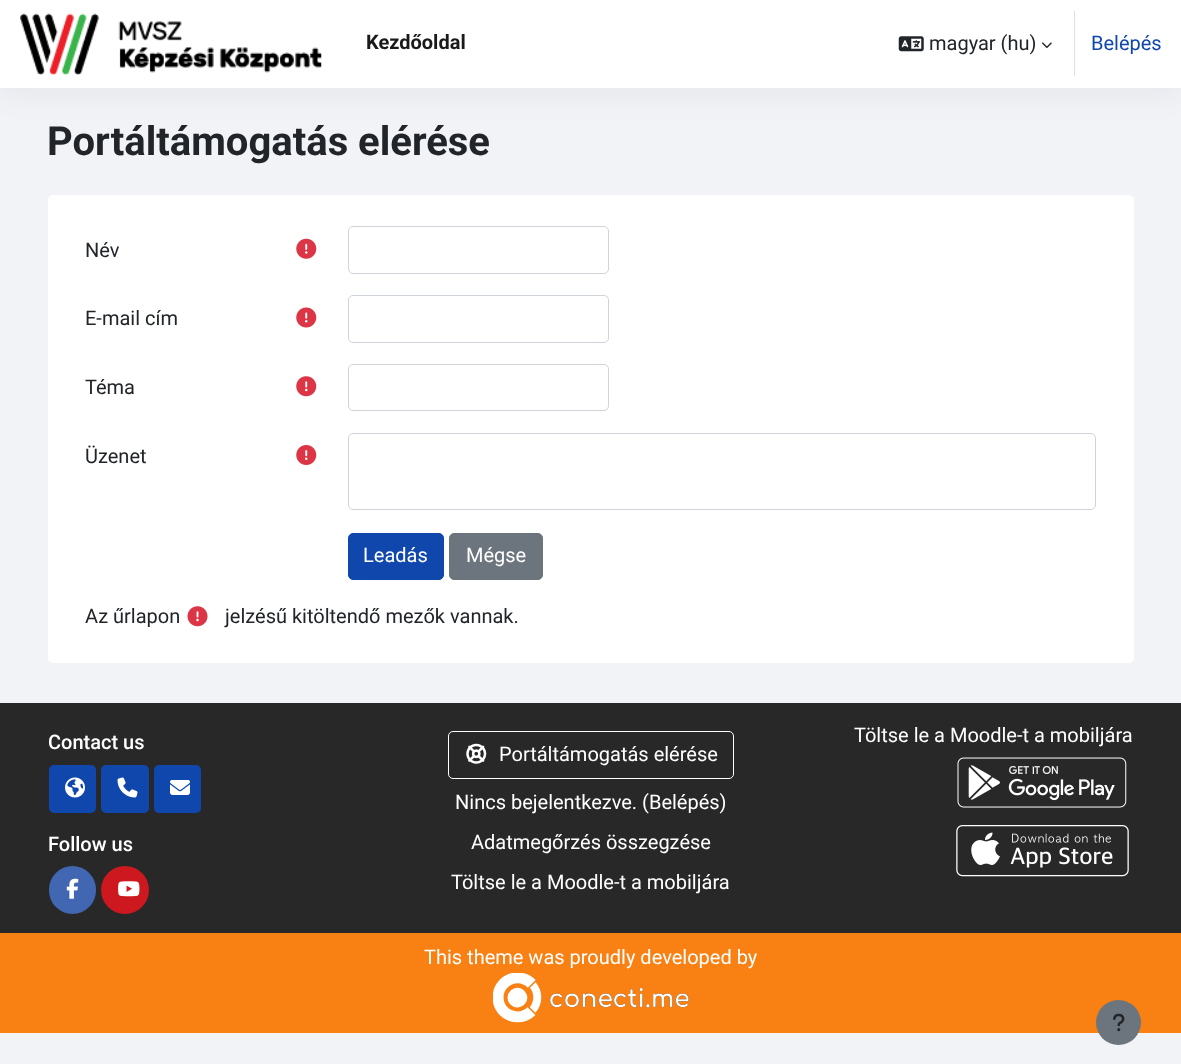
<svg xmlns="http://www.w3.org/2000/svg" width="1181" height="1064">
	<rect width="100%" height="100%" fill="#F2F3F7" />
	<rect x="0" y="8" width="1181" height="87" fill="#8C98A4" fill-opacity="0.13" filter="blur(15px)" />
	<rect x="0" y="0" width="1181" height="88" fill="#FFFFFF" />
	<image x="20" y="13" width="302" height="62" href="assets/img1.png" />
	<text x="366" y="49" font-family="Roboto" font-size="20" font-weight="700" fill="#1A1A1A">Kezdőoldal</text>
	<image x="898" y="36" width="26" height="16" href="assets/img2.png" />
	<text x="929" y="50" font-family="Roboto" font-size="20" fill="#212529">magyar (hu)</text>
	<image x="1042" y="42" width="10" height="6" href="assets/img3.png" />
	<rect x="1074" y="11" width="1" height="65" fill="#DEE2E6" />
	<text x="1091" y="50" font-family="Roboto" font-size="20" fill="#0F47AD">Belépés</text>
	<text x="47" y="155" font-family="Roboto" font-size="40" font-weight="700" fill="#212529">Portáltámogatás elérése</text>
	<rect x="48" y="195" width="1086" height="468" rx="5" fill="#FFFFFF" />
	<text x="85" y="257" font-family="Roboto" font-size="20" fill="#212529">Név</text>
	<image x="296" y="238" width="21" height="21" href="assets/img4.png" />
	<rect x="348.5" y="226.5" width="260" height="47" rx="4.5" fill="none" stroke="#CED4DA" />
	<text x="85" y="325" font-family="Roboto" font-size="20" fill="#212529">E-mail cím</text>
	<image x="296" y="307" width="21" height="21" href="assets/img5.png" />
	<rect x="348.5" y="295.5" width="260" height="47" rx="4.5" fill="none" stroke="#CED4DA" />
	<text x="85" y="394" font-family="Roboto" font-size="20" fill="#212529">Téma</text>
	<image x="296" y="376" width="21" height="21" href="assets/img6.png" />
	<rect x="348.5" y="364.5" width="260" height="46" rx="4.5" fill="none" stroke="#CED4DA" />
	<text x="85" y="463" font-family="Roboto" font-size="20" fill="#212529">Üzenet</text>
	<image x="296" y="445" width="21" height="20" href="assets/img7.png" />
	<rect x="348.5" y="433.5" width="747" height="76" rx="4.5" fill="none" stroke="#CED4DA" />
	<rect x="348.5" y="533.5" width="95" height="46" rx="4.5" fill="#0F47AD" stroke="#0F47AD" />
	<text x="363" y="562" font-family="Roboto" font-size="20" fill="#FFFFFF">Leadás</text>
	<rect x="449.5" y="533.5" width="93" height="46" rx="4.5" fill="#6C757D" stroke="#6C757D" />
	<text x="466" y="562" font-family="Roboto" font-size="20" fill="#FFFFFF">Mégse</text>
	<text x="85" y="623" font-family="Roboto" font-size="20" fill="#212529">Az űrlapon</text>
	<image x="187" y="606" width="21" height="21" href="assets/img8.png" />
	<text x="225" y="623" font-family="Roboto" font-size="20" fill="#212529">jelzésű kitöltendő mezők vannak.</text>
	<rect x="0" y="703" width="1181" height="230" fill="#282829" />
	<text x="48" y="749" font-family="Roboto" font-size="20" font-weight="500" fill="#FFFFFF">Contact us</text>
	<rect x="49" y="765" width="47" height="48" rx="5" fill="#0F47AD" />
	<image x="65" y="777" width="20" height="21" href="assets/img9.png" />
	<rect x="101" y="765" width="48" height="48" rx="5" fill="#0F47AD" />
	<image x="117" y="777" width="21" height="21" href="assets/img10.png" />
	<rect x="154" y="765" width="47" height="48" rx="5" fill="#0F47AD" />
	<image x="170" y="780" width="20" height="15" href="assets/img11.png" />
	<text x="48" y="851" font-family="Roboto" font-size="20" font-weight="500" fill="#FFFFFF">Follow us</text>
	<rect x="49" y="866" width="47" height="48" rx="23.5" fill="#4167B2" />
	<image x="66" y="878" width="13" height="21" href="assets/img12.png" />
	<circle cx="125" cy="890" r="24" fill="#CC181E" />
	<image x="118" y="881" width="22" height="16" href="assets/img13.png" />
	<rect x="448.5" y="731.5" width="285" height="47" rx="4.5" fill="none" stroke="#FFFFFF" />
	<image x="466" y="743" width="21" height="21" href="assets/img14.png" />
	<g font-family="Roboto" font-size="20" fill="#FFFFFF">
		<text x="499" y="761">Portáltámogatás elérése</text>
		<text x="455" y="809">Nincs bejelentkezve. (Belépés)</text>
		<text x="471" y="849">Adatmegőrzés összegzése</text>
		<text x="451" y="889">Töltse le a Moodle-t a mobiljára</text>
		<text x="854" y="742">Töltse le a Moodle-t a mobiljára</text>
	</g>
	<image x="957" y="757" width="170" height="51" href="assets/img15.png" />
	<image x="956" y="825" width="173" height="52" href="assets/img16.png" />
	<rect x="0" y="933" width="1181" height="100" fill="#F98012" />
	<text x="424" y="964" font-family="Roboto" font-size="20" fill="#FFFFFF">This theme was proudly developed by</text>
	<image x="493" y="973" width="196" height="50" href="assets/img17.png" />
	<circle cx="1118.5" cy="1022.5" r="22.5" fill="#6C757D" />
	<image x="1113" y="1013" width="12" height="19" href="assets/img18.png" />
</svg>
